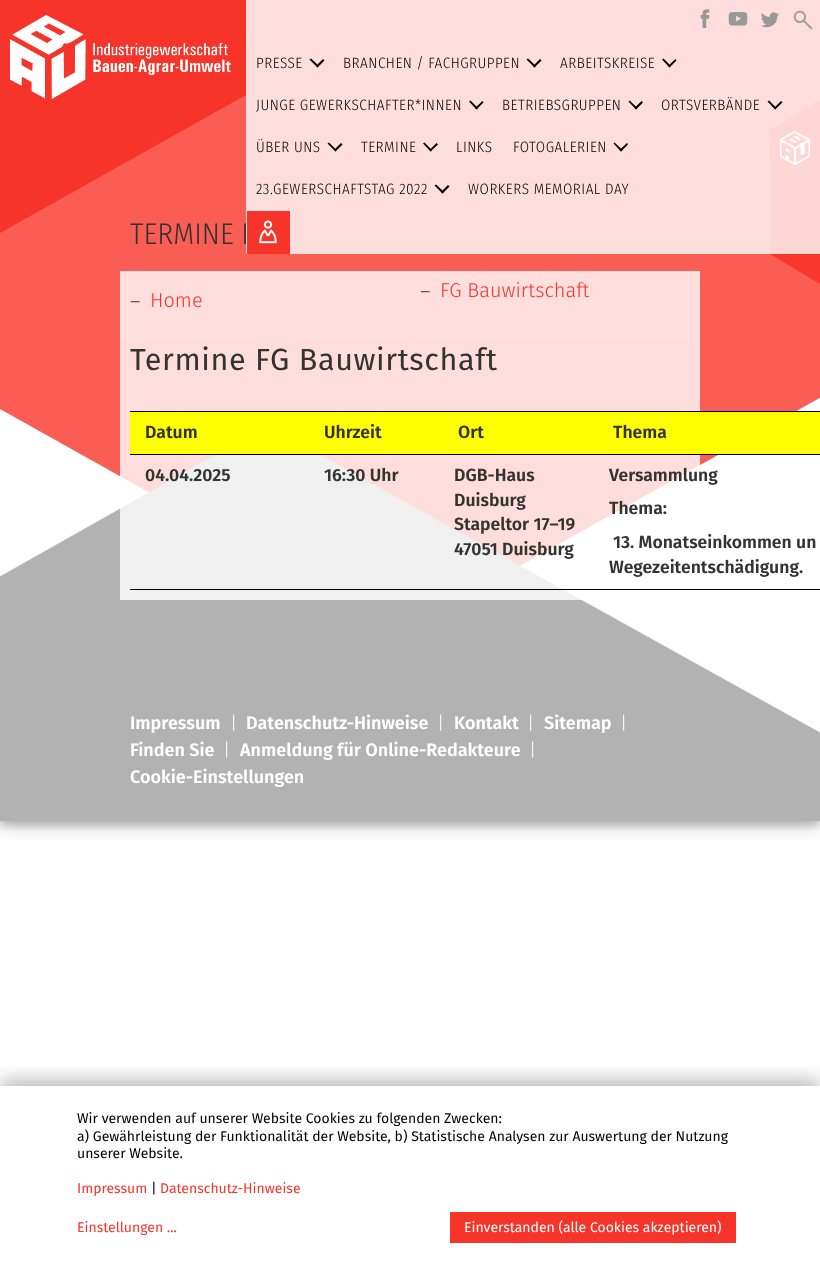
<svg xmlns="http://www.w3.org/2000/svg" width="820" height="1264">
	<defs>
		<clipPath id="clip1"><rect x="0" y="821" width="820" height="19" /></clipPath>
		<clipPath id="clip2"><rect x="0" y="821" width="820" height="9" /></clipPath>
		<clipPath id="clip3"><rect x="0" y="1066" width="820" height="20" /></clipPath>
	</defs>
	<rect width="100%" height="100%" fill="#FFFFFF" />
	<g clip-path="url(#clip1)">
		<rect x="0" y="6" width="820" height="821" fill="#000000" fill-opacity="0.19" filter="blur(10px)" />
	</g>
	<g clip-path="url(#clip2)">
		<rect x="0" y="4" width="820" height="821" fill="#000000" fill-opacity="0.2" filter="blur(4px)" />
	</g>
	<path d="M-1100-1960L400-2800L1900-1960V-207L400 633L-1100-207Z" fill="#F95D54" fill-rule="evenodd" />
	<text x="130" y="244" font-family="Fira Sans Condensed" font-size="30" font-weight="300" fill="#333333">TERMINE F</text>
	<path d="M-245-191L0-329L246-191V95L0 233L-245 95Z" fill="#F73429" fill-rule="evenodd" />
	<image x="10" y="15" width="221" height="84" href="assets/img1.png" />
	<path d="M820 130H770L820 100Z" fill="#F7382D" />
	<rect x="770" y="130" width="50" height="124" fill="#F7382D" />
	<image x="780" y="131" width="30" height="34" href="assets/img7.png" />
	<rect x="246" y="0" width="574" height="254" fill="#FFFFFF" fill-opacity="0.8" />
	<image x="700" y="9" width="10" height="20" href="assets/img2.png" />
	<image x="728" y="12" width="20" height="14" href="assets/img3.png" />
	<image x="761" y="12" width="19" height="16" href="assets/img4.png" />
	<image x="793" y="10" width="20" height="20" href="assets/img5.png" />
	<text x="256" y="68" font-family="Fira Sans Condensed" font-size="15" font-weight="300" letter-spacing="0.5" fill="#000000">PRESSE</text>
	<path d="M324.5 60.5L317.5 67.5L316 66L323 59Z" fill="#000000" />
	<path d="M319 66L317.5 67.5L309.5 59.5L311 58.5Z" fill="#000000" />
	<text x="343" y="68" font-family="Fira Sans Condensed" font-size="15" font-weight="300" letter-spacing="0.5" fill="#000000">BRANCHEN / FACHGRUPPEN</text>
	<path d="M541.5 60.5L534.5 67.5L533 66L540 59Z" fill="#000000" />
	<path d="M536 66L534.5 67.5L526.5 59.5L528 58.5Z" fill="#000000" />
	<text x="560" y="68" font-family="Fira Sans Condensed" font-size="15" font-weight="300" letter-spacing="0.5" fill="#000000">ARBEITSKREISE</text>
	<path d="M676.5 60.5L669.5 67.5L668 66L675.5 59Z" fill="#000000" />
	<path d="M671 66L669.5 67.5L662 59.5L663.5 58.5Z" fill="#000000" />
	<text x="256" y="110" font-family="Fira Sans Condensed" font-size="15" font-weight="300" letter-spacing="0.5" fill="#000000">JUNGE GEWERKSCHAFTER*INNEN</text>
	<path d="M483.5 102.5L476.5 109.5L475 108L482.5 101Z" fill="#000000" />
	<path d="M478 108L476.5 109.5L469 101.5L470.5 100.5Z" fill="#000000" />
	<text x="502" y="110" font-family="Fira Sans Condensed" font-size="15" font-weight="300" letter-spacing="0.5" fill="#000000">BETRIEBSGRUPPEN</text>
	<path d="M643 102.5L636 109.5L634.5 108L641.5 101Z" fill="#000000" />
	<path d="M637.5 108L636 109.5L628.5 101.5L629.5 100.5Z" fill="#000000" />
	<text x="661" y="110" font-family="Fira Sans Condensed" font-size="15" font-weight="300" letter-spacing="0.5" fill="#000000">ORTSVERBÄNDE</text>
	<path d="M782.5 102.5L775 109.5L774 108L781 101Z" fill="#000000" />
	<path d="M776.5 108L775 109.5L767.5 101.5L769 100.5Z" fill="#000000" />
	<text x="256" y="152" font-family="Fira Sans Condensed" font-size="15" font-weight="300" letter-spacing="0.5" fill="#000000">ÜBER UNS</text>
	<path d="M342.5 144.5L335.5 151.5L334 150L341 143Z" fill="#000000" />
	<path d="M336.5 150L335.5 151.5L327.5 143.5L329 142.5Z" fill="#000000" />
	<text x="361" y="152" font-family="Fira Sans Condensed" font-size="15" font-weight="300" letter-spacing="0.5" fill="#000000">TERMINE</text>
	<path d="M438 144.5L430.5 151.5L429.5 150L436.5 143Z" fill="#000000" />
	<path d="M432 150L430.5 151.5L423 143.5L424.5 142.5Z" fill="#000000" />
	<g font-family="Fira Sans Condensed" font-size="15" font-weight="300" letter-spacing="0.5" fill="#000000">
		<text x="456" y="152">LINKS</text>
		<text x="513" y="152">FOTOGALERIEN</text>
	</g>
	<path d="M628 144.5L621 151.5L619.5 150L627 143Z" fill="#000000" />
	<path d="M622.5 150L621 151.5L613.5 143.5L614.5 142.5Z" fill="#000000" />
	<text x="256" y="194" font-family="Fira Sans Condensed" font-size="15" font-weight="300" letter-spacing="0.5" fill="#000000">23.GEWERSCHAFTSTAG 2022</text>
	<path d="M449.5 186.5L442.5 193.5L441 192L448 185Z" fill="#000000" />
	<path d="M444 192L442.5 193.5L434.5 185.5L436 184.5Z" fill="#000000" />
	<text x="468" y="194" font-family="Fira Sans Condensed" font-size="15" font-weight="300" letter-spacing="0.5" fill="#000000">WORKERS MEMORIAL DAY</text>
	<rect x="247" y="211" width="43" height="43" fill="#F73429" />
	<image x="259" y="220" width="18" height="24" href="assets/img6.png" />
	<path d="M820 254V284L770 254Z" fill="#F73429" fill-opacity="0.9" />
	<rect x="120" y="271" width="580" height="68" fill="#FEDFDD" />
	<text x="420" y="298" font-family="Fira Sans" font-size="20" font-weight="300" fill="#333333">–</text>
	<text x="440" y="297" font-family="Fira Sans" font-size="20" font-weight="300" fill="#F73429">FG Bauwirtschaft</text>
	<text x="130" y="308" font-family="Fira Sans" font-size="20" font-weight="300" fill="#333333">–</text>
	<text x="150" y="307" font-family="Fira Sans" font-size="20" font-weight="300" fill="#F73429">Home</text>
	<image x="0" y="455" width="820" height="366" href="assets/img8.png" />
	<rect x="120" y="339" width="580" height="261" fill="#FFFFFF" fill-opacity="0.8" />
	<text x="130" y="370" font-family="Fira Sans" font-size="30.6" letter-spacing="0.6" fill="#333333">Termine FG Bauwirtschaft</text>
	<rect x="130" y="589" width="690" height="1" fill="#000000" />
	<rect x="130" y="412" width="690" height="42" fill="#FFFF00" />
	<g font-family="Fira Sans" font-size="17.6" font-weight="600" fill="#333333">
		<text x="145" y="438">Datum</text>
		<text x="324" y="438">Uhrzeit</text>
		<text x="458" y="438">Ort</text>
	</g>
	<rect x="130" y="411" width="690" height="1" fill="#000000" />
	<g font-family="Fira Sans" font-size="17.6" font-weight="600" fill="#333333">
		<text x="613" y="438">Thema</text>
		<text x="145" y="481">04.04.2025</text>
		<text x="324" y="481">16:30 Uhr</text>
		<text x="454" y="481">DGB-Haus</text>
		<text x="454" y="506">Duisburg</text>
		<text x="454" y="530">Stapeltor 17–19</text>
		<text x="454" y="555">47051 Duisburg</text>
	</g>
	<rect x="130" y="454" width="690" height="1" fill="#000000" />
	<g font-family="Fira Sans" font-size="17.6" font-weight="600" fill="#333333">
		<text x="609" y="481">Versammlung</text>
		<text x="609" y="514">Thema:</text>
		<text x="613" y="548">13. Monatseinkommen un</text>
		<text x="609" y="573">Wegezeitentschädigung.</text>
	</g>
	<text x="130" y="729" font-family="Fira Sans" font-size="18" font-weight="600" fill="#FFFFFF">Impressum</text>
	<text x="230" y="729" font-family="Fira Sans" font-size="18" font-weight="300" fill="#FFFFFF">|</text>
	<text x="246" y="729" font-family="Fira Sans" font-size="18" font-weight="600" fill="#FFFFFF">Datenschutz-Hinweise</text>
	<text x="437" y="729" font-family="Fira Sans" font-size="18" font-weight="300" fill="#FFFFFF">|</text>
	<text x="454" y="729" font-family="Fira Sans" font-size="18" font-weight="600" fill="#FFFFFF">Kontakt</text>
	<text x="527" y="729" font-family="Fira Sans" font-size="18" font-weight="300" fill="#FFFFFF">|</text>
	<text x="544" y="729" font-family="Fira Sans" font-size="18" font-weight="600" fill="#FFFFFF">Sitemap</text>
	<text x="620" y="729" font-family="Fira Sans" font-size="18" font-weight="300" fill="#FFFFFF">|</text>
	<text x="130" y="756" font-family="Fira Sans" font-size="18" font-weight="600" fill="#FFFFFF">Finden Sie</text>
	<text x="223" y="756" font-family="Fira Sans" font-size="18" font-weight="300" fill="#FFFFFF">|</text>
	<text x="240" y="756" font-family="Fira Sans" font-size="18" font-weight="600" fill="#FFFFFF">Anmeldung für Online-Redakteure</text>
	<text x="529" y="756" font-family="Fira Sans" font-size="18" font-weight="300" fill="#FFFFFF">|</text>
	<text x="130" y="783" font-family="Fira Sans" font-size="18" font-weight="600" fill="#FFFFFF">Cookie-Einstellungen</text>
	<g clip-path="url(#clip3)">
		<rect x="0" y="1081" width="820" height="178" fill="#000000" fill-opacity="0.3" filter="blur(10px)" />
	</g>
	<g font-family="Fira Sans" font-size="14" fill="#000000">
		<text x="77" y="1123">Wir verwenden auf unserer Website Cookies zu folgenden Zwecken:</text>
		<text x="77" y="1141">a) Gewährleistung der Funktionalität der Website, b) Statistische Analysen zur Auswertung der Nutzung</text>
		<text x="77" y="1158">unserer Website.</text>
	</g>
	<text x="77" y="1193" font-family="Fira Sans" font-size="14" fill="#F73429">Impressum</text>
	<text x="151" y="1193" font-family="Fira Sans" font-size="14" fill="#000000">|</text>
	<g font-family="Fira Sans" font-size="14" fill="#F73429">
		<text x="160" y="1193">Datenschutz-Hinweise</text>
		<text x="77" y="1232">Einstellungen ...</text>
	</g>
	<rect x="450" y="1212" width="286" height="31" fill="#F73429" />
	<text x="464" y="1232" font-family="Fira Sans" font-size="14" fill="#FFFFFF">Einverstanden (alle Cookies akzeptieren)</text>
</svg>
